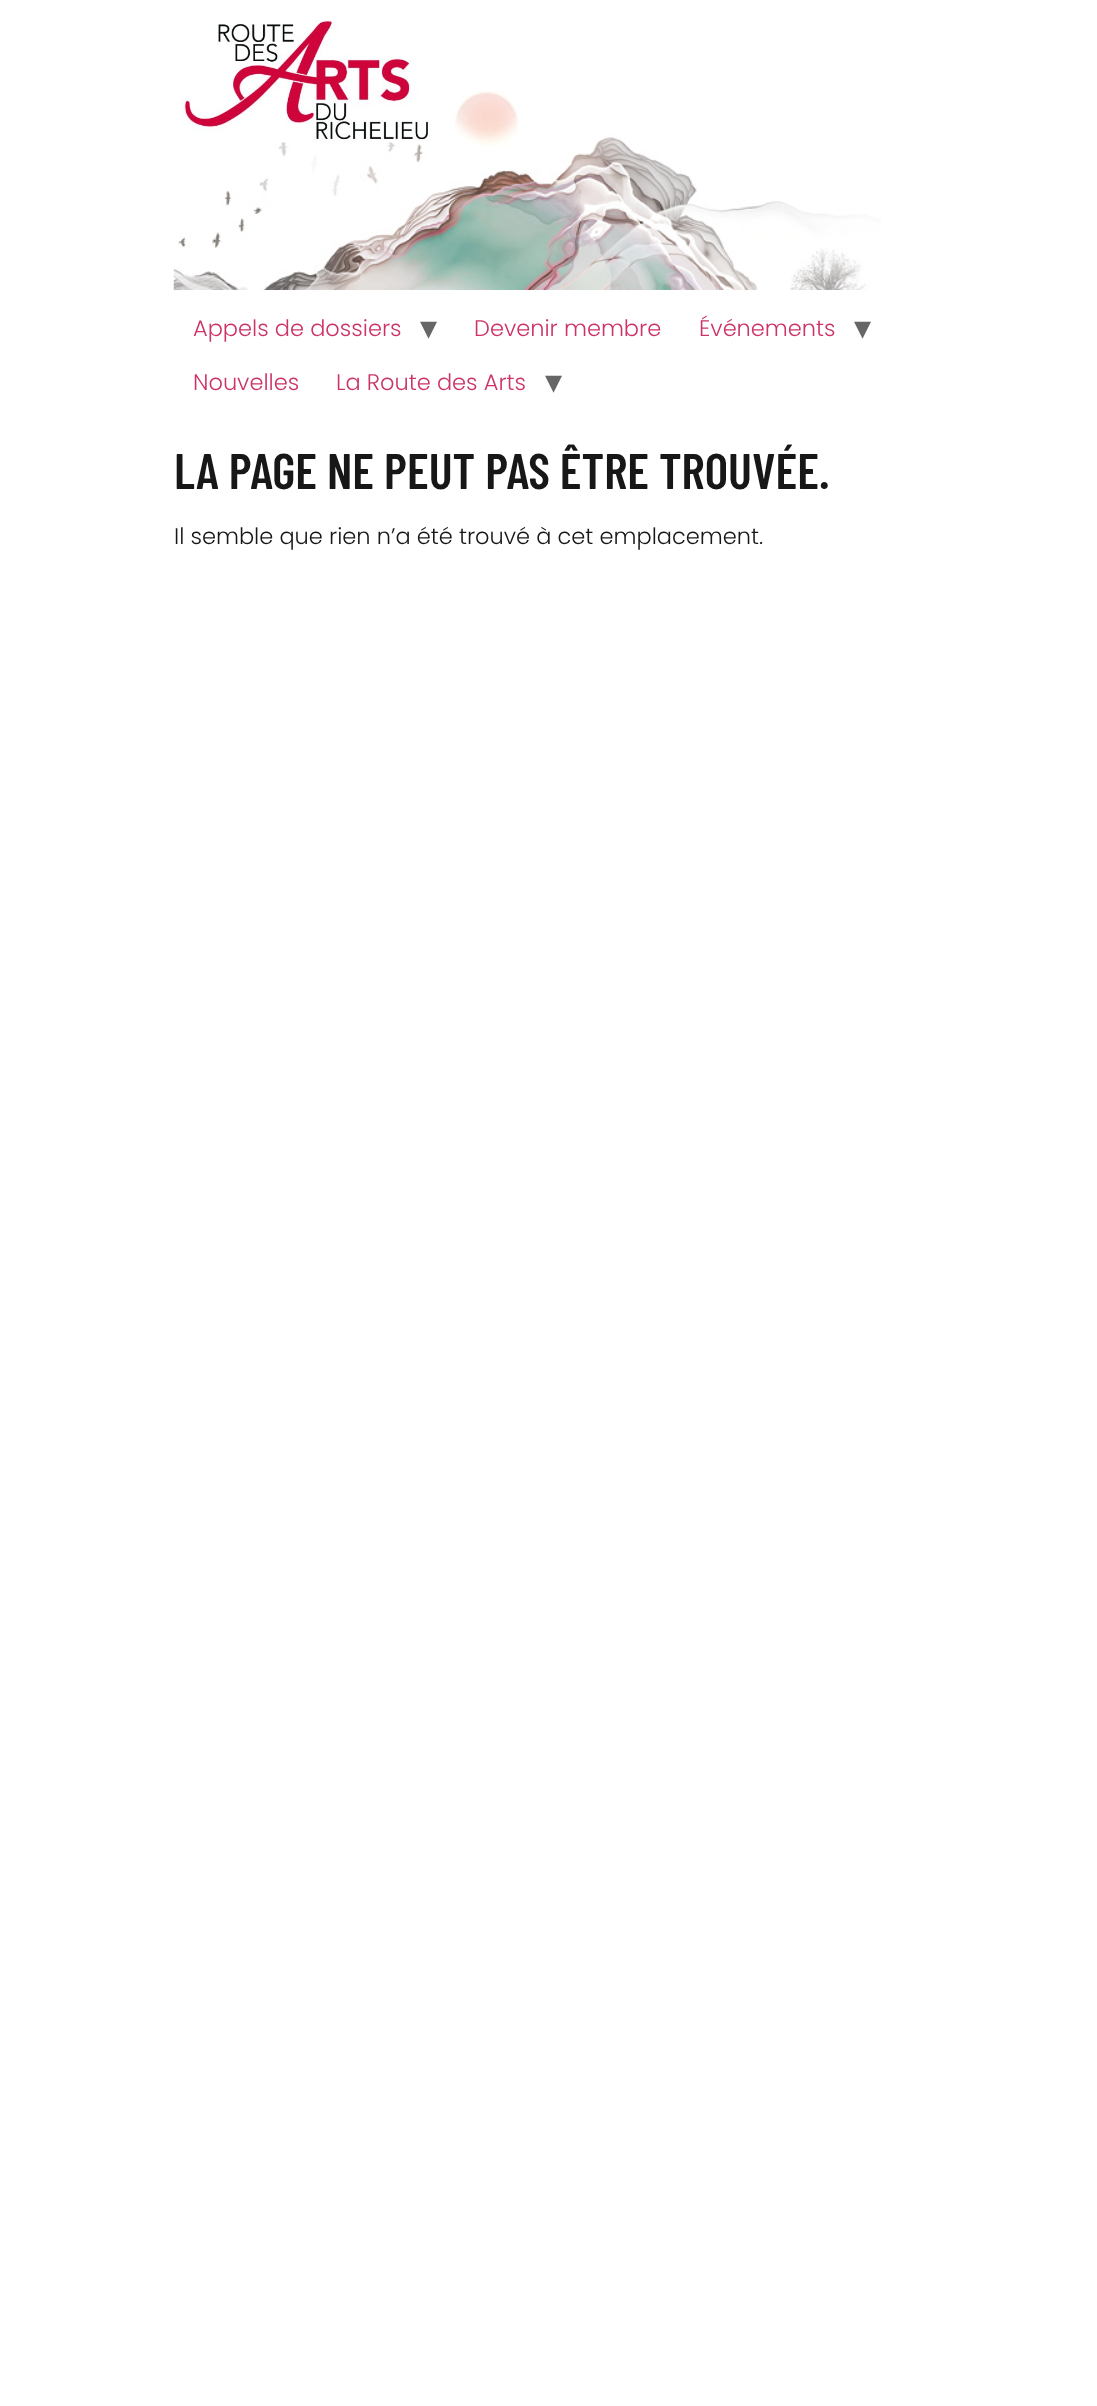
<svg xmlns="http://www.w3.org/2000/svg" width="1097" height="2406">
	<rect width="100%" height="100%" fill="#FFFFFF" />
	<image x="173" y="91" width="708" height="199" href="assets/img1.png" />
	<image x="182" y="20" width="254" height="123" href="assets/img2.png" />
	<text x="193" y="336" font-family="Poppins" font-size="22.5" font-weight="300" fill="#CC3366">Appels de dossiers</text>
	<text x="420" y="339" font-family="DejaVu Sans" font-size="34" fill="#666666">▾</text>
	<g font-family="Poppins" font-size="22.5" font-weight="300" fill="#CC3366">
		<text x="474" y="336">Devenir membre</text>
		<text x="699" y="336">Événements</text>
	</g>
	<text x="854" y="339" font-family="DejaVu Sans" font-size="34" fill="#666666">▾</text>
	<g font-family="Poppins" font-size="22.5" font-weight="300" fill="#CC3366">
		<text x="193" y="390">Nouvelles</text>
		<text x="336" y="390">La Route des Arts</text>
	</g>
	<text x="545" y="393" font-family="DejaVu Sans" font-size="34" fill="#666666">▾</text>
	<text x="174" y="489" font-family="Barlow Condensed" font-size="50" font-weight="600" fill="#171717">LA PAGE NE PEUT PAS ÊTRE TROUVÉE.</text>
	<text x="174" y="544" font-family="Poppins" font-size="22.5" font-weight="300" fill="#171717">Il semble que rien n’a été trouvé à cet emplacement.</text>
</svg>
